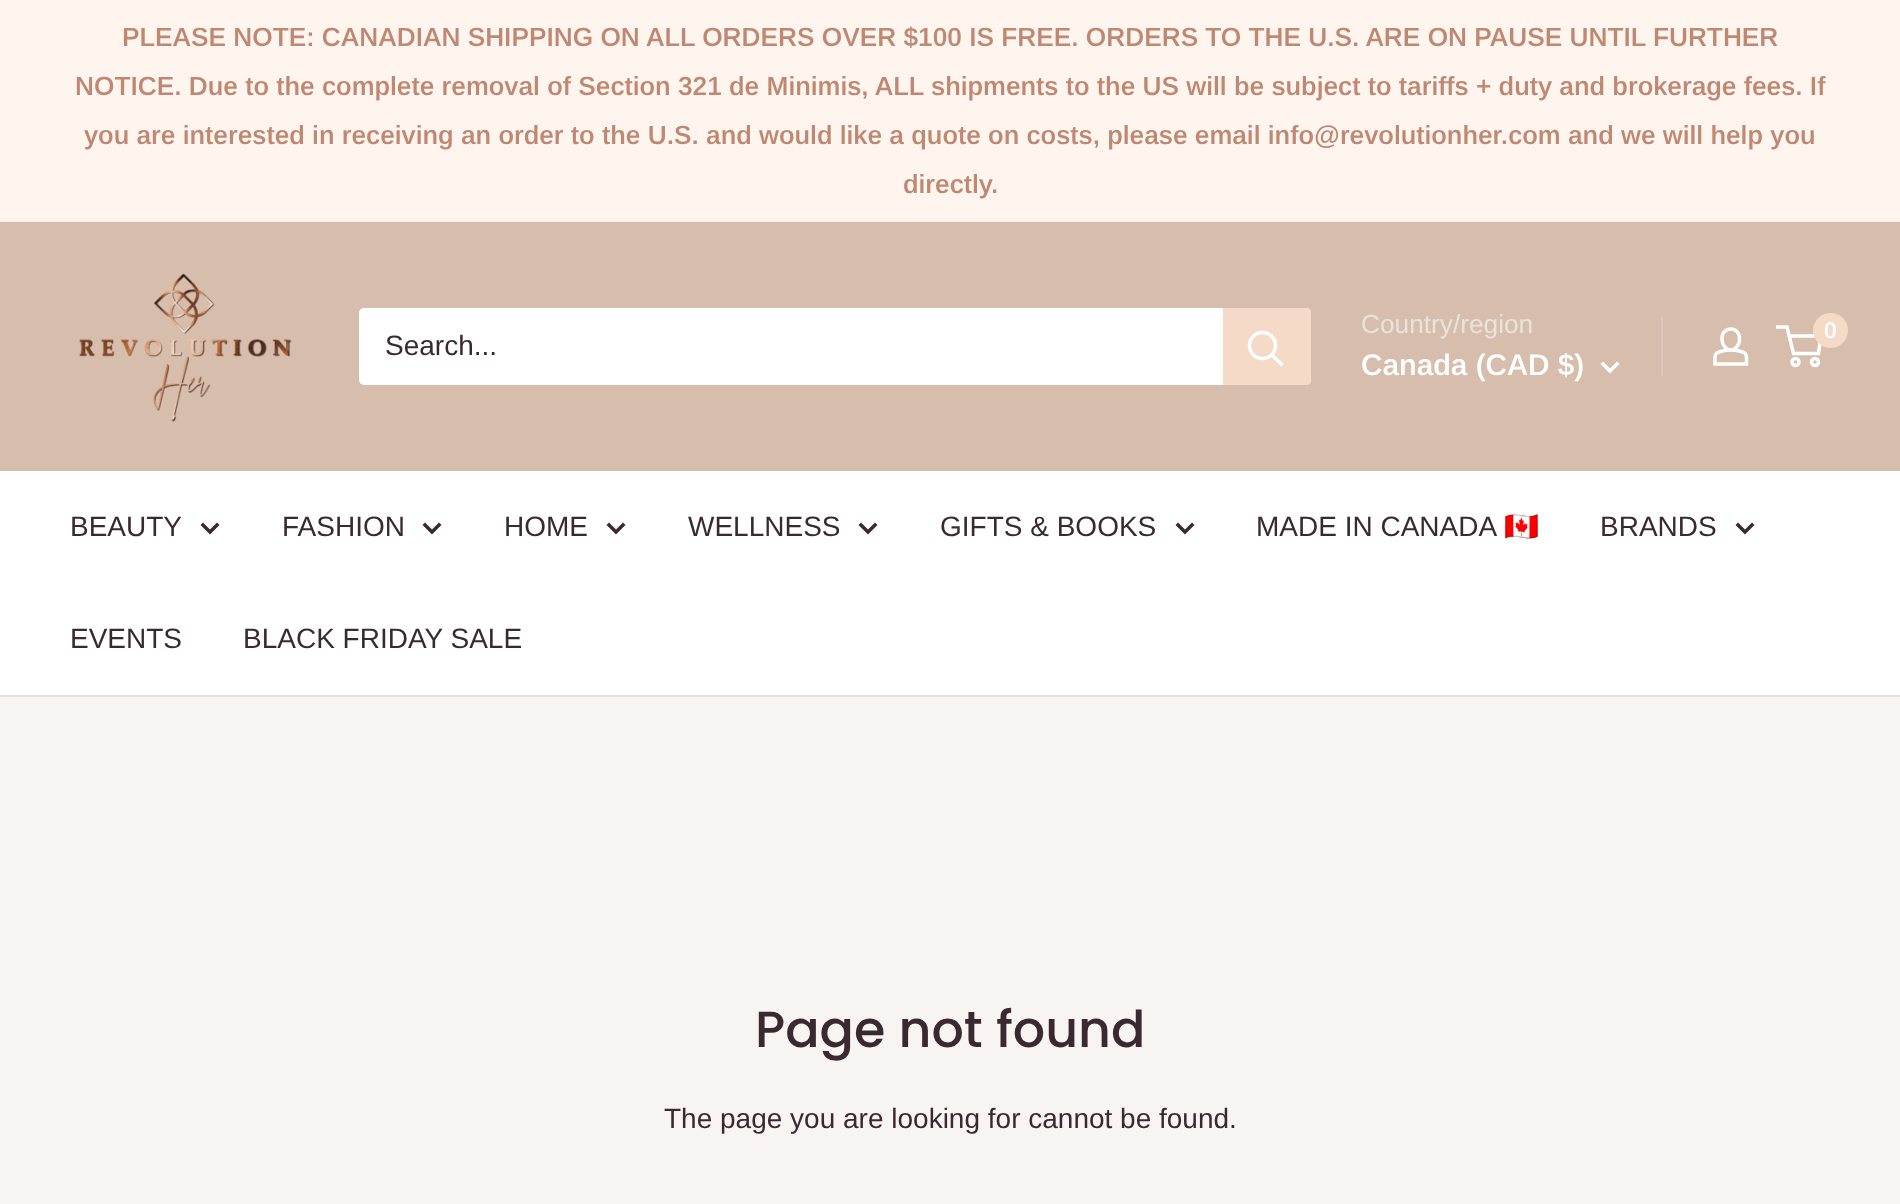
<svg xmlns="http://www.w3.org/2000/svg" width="1900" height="1204">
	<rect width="100%" height="100%" fill="#F7F4F2" />
	<rect x="0" y="0" width="1900" height="221" fill="#FFF5EF" />
	<rect x="0" y="221" width="1900" height="1" fill="#F8EFEA" />
	<g font-family="Arimo" font-size="26.25" font-weight="600" fill="#C08873">
		<text x="122" y="46">PLEASE NOTE: CANADIAN SHIPPING ON ALL ORDERS OVER $100 IS FREE. ORDERS TO THE U.S. ARE ON PAUSE UNTIL FURTHER</text>
		<text x="75" y="95">NOTICE. Due to the complete removal of Section 321 de Minimis, ALL shipments to the US will be subject to tariffs + duty and brokerage fees. If</text>
		<text x="84" y="144">you are interested in receiving an order to the U.S. and would like a quote on costs, please email info@revolutionher.com and we will help you</text>
		<text x="903" y="193">directly.</text>
	</g>
	<rect x="0" y="222" width="1900" height="249" fill="#D7BEAC" />
	<image x="79" y="273" width="213" height="149" href="assets/img1.png" />
	<rect x="359" y="308" width="952" height="77" rx="5" fill="#FFFFFF" />
	<text x="385" y="355" font-family="Arimo" font-size="28" fill="#3A2A2F">Search...</text>
	<path d="M1223 308H1306C1309 308 1311 310 1311 313V380C1311 383 1309 385 1306 385H1223Z" fill="#F5DAC7" />
	<path d="M1281 364L1272 355" fill="none" stroke="#FFFFFF" stroke-width="3.5" stroke-linecap="square" />
	<circle cx="1262.5" cy="345.5" r="13" fill="none" stroke="#FFFFFF" stroke-width="3.5" />
	<text x="1361" y="333" font-family="Arimo" font-size="26.25" fill="#E9E2DD">Country/region</text>
	<text x="1361" y="375" font-family="Arimo" font-size="29.75" font-weight="600" fill="#FFFFFF">Canada (CAD $)</text>
	<path d="M1617 364L1610 371L1603 364" fill="none" stroke="#FFFFFF" stroke-width="3.5" stroke-linecap="square" />
	<rect x="1661" y="317" width="2" height="59" fill="#DCC9BB" />
	<image x="1713" y="327" width="36" height="39" href="assets/img2.png" />
	<circle cx="1795.5" cy="362" r="3.5" fill="none" stroke="#FFFFFF" stroke-width="3.5" />
	<circle cx="1815" cy="362" r="3.5" fill="none" stroke="#FFFFFF" stroke-width="3.5" />
	<path d="M1789 336H1821L1818.5 353.5H1793.5L1787 327H1776" fill="none" stroke="#FFFFFF" stroke-width="3.5" />
	<circle cx="1830.5" cy="330.5" r="17.5" fill="#F5DAC7" />
	<text x="1824" y="338" font-family="Arimo" font-size="23" font-weight="600" fill="#FFFFFF">0</text>
	<rect x="0" y="471" width="1900" height="224" fill="#FFFFFF" />
	<rect x="0" y="695" width="1900" height="2" fill="#E7E2DE" />
	<text x="70" y="536" font-family="Arimo" font-size="28" fill="#3A2A2F">BEAUTY</text>
	<path d="M217 525L210 532L203 525" fill="none" stroke="#3A2A2F" stroke-width="3.5" stroke-linecap="square" />
	<text x="282" y="536" font-family="Arimo" font-size="28" fill="#3A2A2F">FASHION</text>
	<path d="M439 525L432 532L425 525" fill="none" stroke="#3A2A2F" stroke-width="3.5" stroke-linecap="square" />
	<text x="504" y="536" font-family="Arimo" font-size="28" fill="#3A2A2F">HOME</text>
	<path d="M623 525L616 532L609 525" fill="none" stroke="#3A2A2F" stroke-width="3.5" stroke-linecap="square" />
	<text x="688" y="536" font-family="Arimo" font-size="28" fill="#3A2A2F">WELLNESS</text>
	<path d="M875 525L868 532L861 525" fill="none" stroke="#3A2A2F" stroke-width="3.5" stroke-linecap="square" />
	<text x="940" y="536" font-family="Arimo" font-size="28" fill="#3A2A2F">GIFTS &amp; BOOKS</text>
	<path d="M1192 525L1185 532L1178 525" fill="none" stroke="#3A2A2F" stroke-width="3.5" stroke-linecap="square" />
	<text x="1256" y="536" font-family="Arimo" font-size="28" fill="#3A2A2F">MADE IN CANADA</text>
	<text x="1504" y="536" font-family="Noto Color Emoji" font-size="28" fill="#3A2A2F">🇨🇦</text>
	<text x="1600" y="536" font-family="Arimo" font-size="28" fill="#3A2A2F">BRANDS</text>
	<path d="M1752 525L1745 532L1738 525" fill="none" stroke="#3A2A2F" stroke-width="3.5" stroke-linecap="square" />
	<g font-family="Arimo" font-size="28" fill="#3A2A2F">
		<text x="70" y="648">EVENTS</text>
		<text x="243" y="648">BLACK FRIDAY SALE</text>
	</g>
	<text x="755" y="1047" font-family="Poppins" font-size="50.75" font-weight="500" fill="#3A2A2F">Page not found</text>
	<text x="664" y="1128" font-family="Arimo" font-size="28" fill="#3A2A2F">The page you are looking for cannot be found.</text>
</svg>
